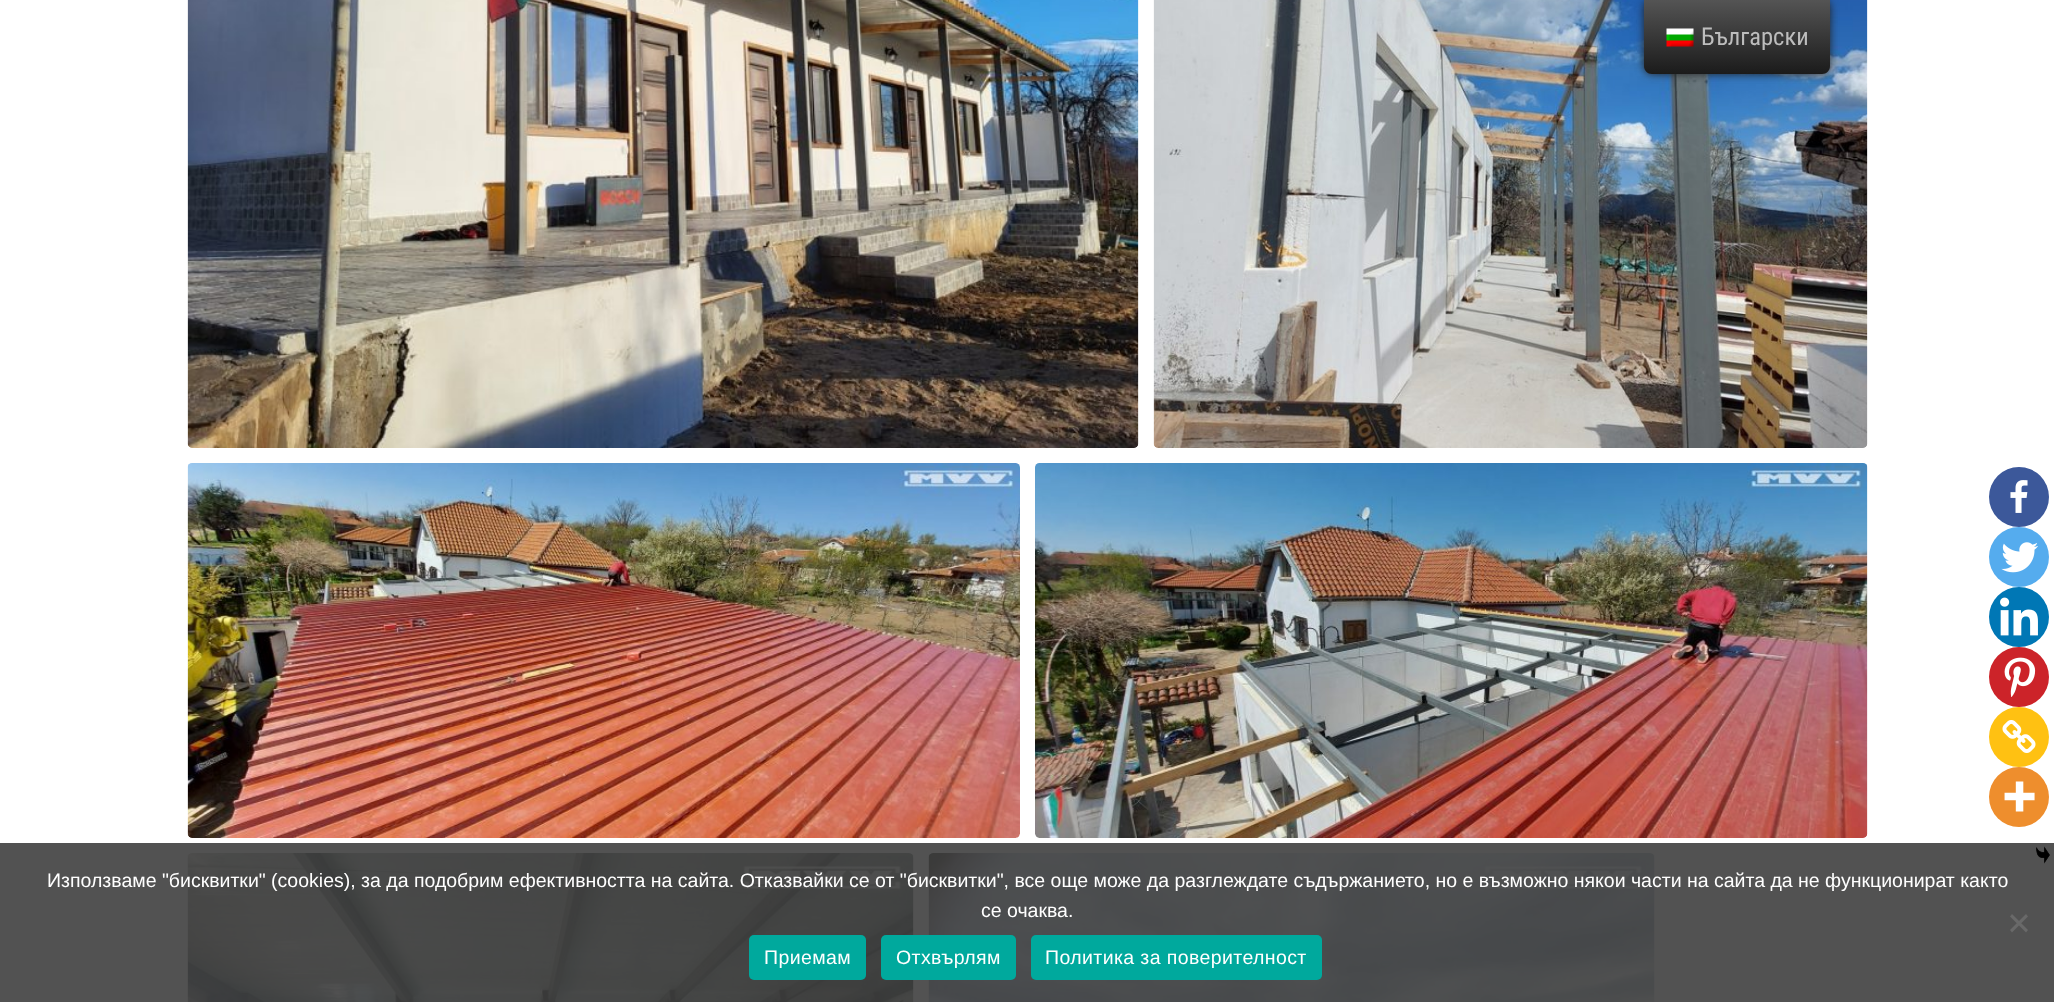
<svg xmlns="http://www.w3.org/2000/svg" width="2054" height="1002">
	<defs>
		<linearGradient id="g1" gradientUnits="userSpaceOnUse" x1="1737" y1="74" x2="1737" y2="0"><stop offset="0" stop-color="#1B1B1B" /><stop offset="1" stop-color="#545454" /></linearGradient>
	</defs>
	<rect width="100%" height="100%" fill="#FFFFFF" />
	<rect x="0" y="843" width="2054" height="159" fill="#525252" />
	<image x="187" y="0" width="952" height="448" href="assets/img1.png" />
	<image x="1153" y="0" width="715" height="448" href="assets/img2.png" />
	<image x="187" y="463" width="833" height="375" href="assets/img3.png" />
	<image x="1035" y="463" width="833" height="375" href="assets/img4.png" />
	<image x="187" y="853" width="727" height="149" href="assets/img5.png" />
	<image x="928" y="853" width="727" height="149" href="assets/img6.png" />
	<circle cx="2019" cy="497" r="30" fill="#3C589A" />
	<image x="2010" y="480" width="18" height="33" href="assets/img7.png" />
	<circle cx="2019" cy="557" r="30" fill="#55ACEE" />
	<image x="2001" y="542" width="37" height="31" href="assets/img8.png" />
	<circle cx="2019" cy="617" r="30" fill="#0077B5" />
	<image x="2000" y="597" width="38" height="39" href="assets/img9.png" />
	<circle cx="2019" cy="677" r="30" fill="#CC2329" />
	<image x="2004" y="657" width="32" height="40" href="assets/img10.png" />
	<circle cx="2019" cy="737" r="30" fill="#FFC112" />
	<image x="2002" y="720" width="34" height="33" href="assets/img11.png" />
	<circle cx="2019" cy="797" r="30" fill="#EE8E2D" />
	<image x="2004" y="781" width="31" height="31" href="assets/img12.png" />
	<image x="2036" y="846" width="14" height="18" href="assets/img13.png" />
	<rect x="1644" y="0" width="186" height="74" rx="8" fill="#212121" filter="blur(4px)" />
	<path d="M1644 0H1830V66C1830 70.5 1826.5 74 1822 74H1652C1647.5 74 1644 70.5 1644 66Z" fill="url(#g1)" />
	<image x="1666" y="28" width="28" height="19" href="assets/img14.png" />
	<text x="1701" y="45" font-family="Roboto Condensed" font-size="24.5" fill="#BDBDBD">Български</text>
	<g font-family="Liberation Sans" font-size="19.5" fill="#FFFFFF">
		<text x="47" y="887">Използваме "бисквитки" (cookies), за да подобрим ефективността на сайта. Отказвайки се от "бисквитки", все още може да разглеждате съдържанието, но е възможно някои части на сайта да не функционират както</text>
		<text x="981" y="917">се очаква.</text>
	</g>
	<path d="M2026 914L2028 916.5L2012 932.5L2010 930Z" fill="#696969" />
	<path d="M2010 916.5L2012 914L2028 930L2026 932.5Z" fill="#696969" />
	<rect x="749" y="935" width="117" height="45" rx="5" fill="#00A99D" />
	<text x="764" y="964" font-family="Liberation Sans" font-size="19.5" letter-spacing="0.4" fill="#FFFFFF">Приемам</text>
	<rect x="881" y="935" width="135" height="45" rx="5" fill="#00A99D" />
	<text x="896" y="964" font-family="Liberation Sans" font-size="19.5" letter-spacing="0.4" fill="#FFFFFF">Отхвърлям</text>
	<rect x="1031" y="935" width="291" height="45" rx="5" fill="#00A99D" />
	<text x="1045" y="964" font-family="Liberation Sans" font-size="19.5" letter-spacing="0.4" fill="#FFFFFF">Политика за поверителност</text>
</svg>
